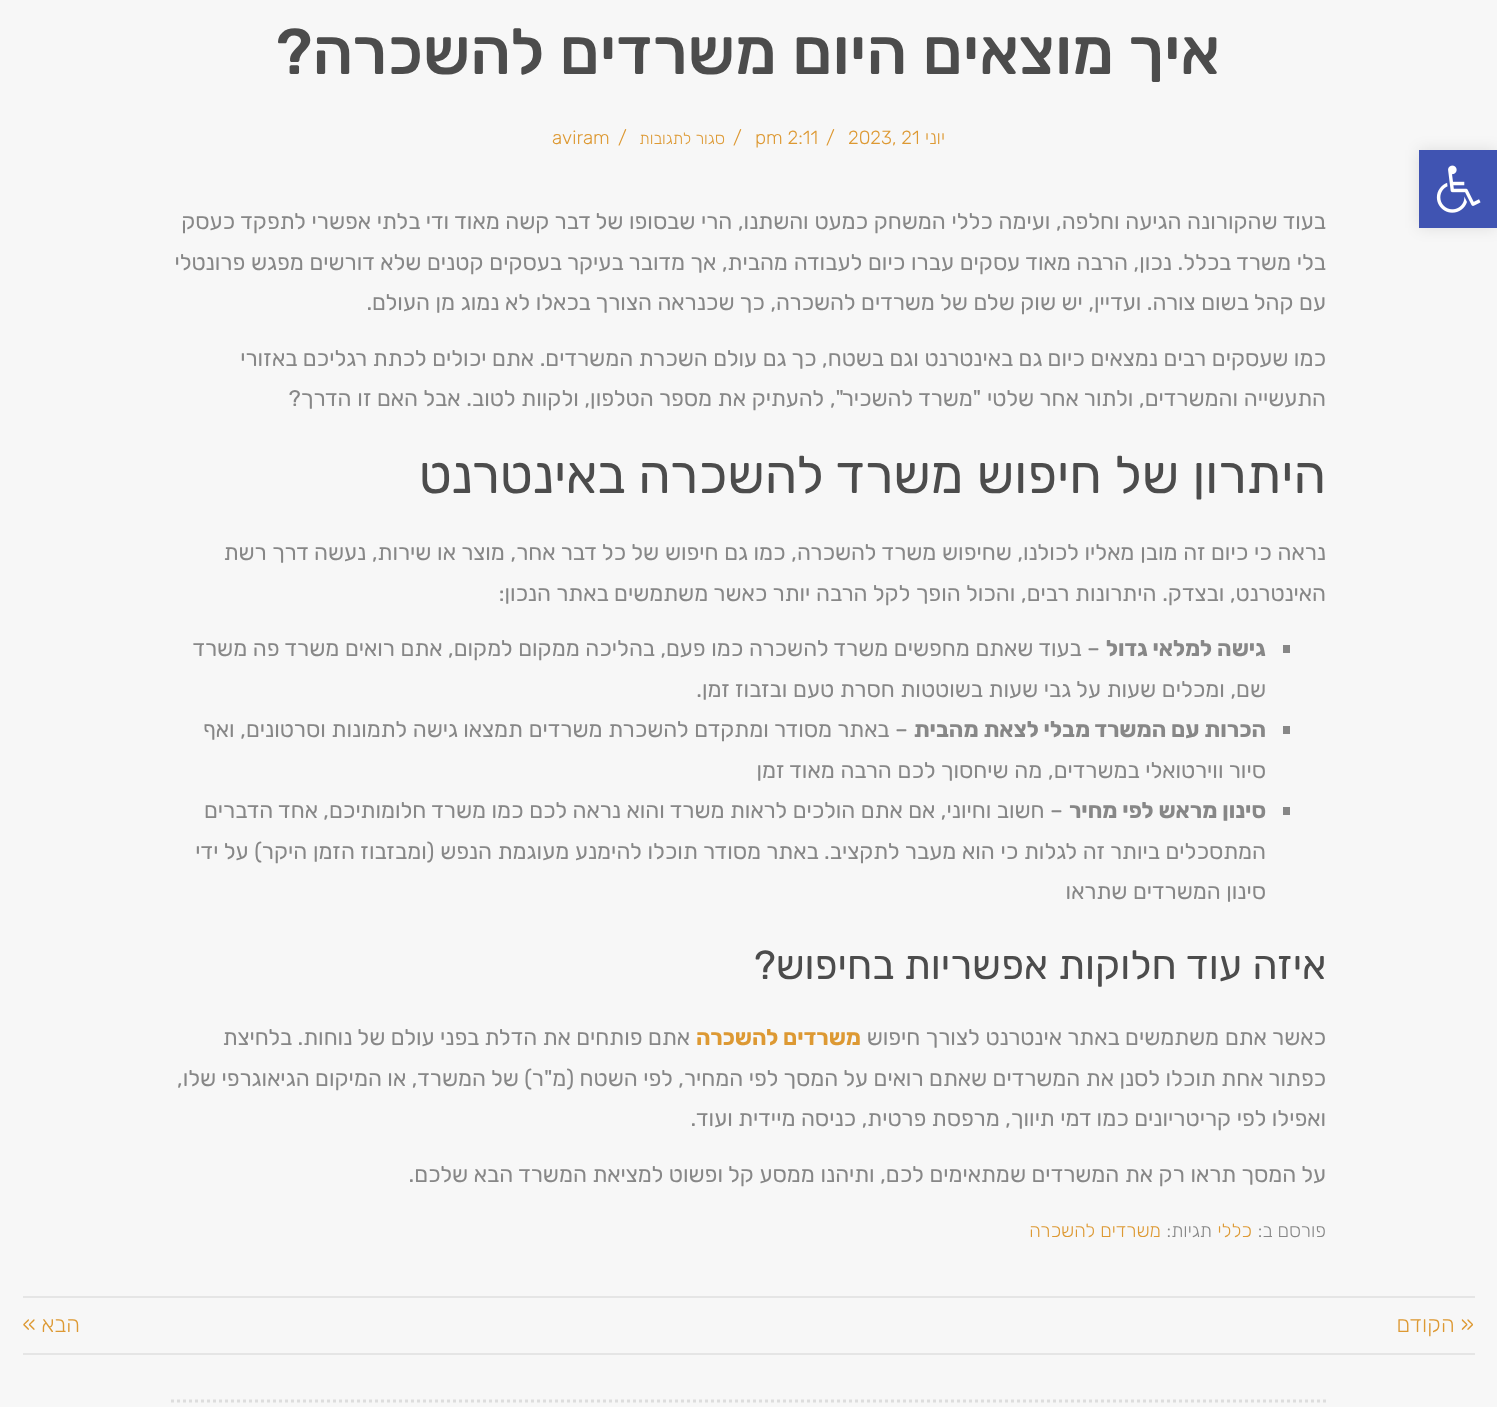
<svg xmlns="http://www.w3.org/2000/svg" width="1497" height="1407">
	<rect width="100%" height="100%" fill="#F7F7F7" />
	<text x="1220" y="74" word-spacing="0.5" font-family="Rubik" font-size="64.5" font-weight="500" direction="rtl" fill="#4C4C4C">איך מוצאים היום משרדים להשכרה?</text>
	<text x="945" y="144" font-family="Rubik" font-size="19" font-weight="300" direction="rtl" fill="#DD9933">יוני</text>
	<g font-family="Rubik" font-size="19" font-weight="300" fill="#DD9933">
		<text x="848" y="144">2023, 21</text>
		<text x="826" y="144">/</text>
		<text x="755" y="144">pm 2:11</text>
		<text x="733" y="144">/</text>
	</g>
	<text x="725" y="144" font-family="Rubik" font-size="16.25" font-weight="300" direction="rtl" fill="#DD9933">סגור לתגובות</text>
	<g font-family="Rubik" font-size="19" font-weight="300" fill="#DD9933">
		<text x="618" y="144">/</text>
		<text x="552" y="144">aviram</text>
	</g>
	<g font-family="Rubik" font-size="22.5" direction="rtl" fill="#878787">
		<text x="1326" y="229" word-spacing="0.2">בעוד שהקורונה הגיעה וחלפה, ועימה כללי המשחק כמעט והשתנו, הרי שבסופו של דבר קשה מאוד ודי בלתי אפשרי לתפקד כעסק</text>
		<text x="1326" y="270" word-spacing="0.25">בלי משרד בכלל. נכון, הרבה מאוד עסקים עברו כיום לעבודה מהבית, אך מדובר בעיקר בעסקים קטנים שלא דורשים מפגש פרונטלי</text>
		<text x="1326" y="310" word-spacing="0.1">עם קהל בשום צורה. ועדיין, יש שוק שלם של משרדים להשכרה, כך שכנראה הצורך בכאלו לא נמוג מן העולם.</text>
		<text x="1326" y="366" word-spacing="0.1">כמו שעסקים רבים נמצאים כיום גם באינטרנט וגם בשטח, כך גם עולם השכרת המשרדים. אתם יכולים לכתת רגליכם באזורי</text>
		<text x="1326" y="406" word-spacing="0.25">התעשייה והמשרדים, ולתור אחר שלטי "משרד להשכיר", להעתיק את מספר הטלפון, ולקוות לטוב. אבל האם זו הדרך?</text>
	</g>
	<text x="1326" y="493" word-spacing="0.5" font-family="Rubik" font-size="52.5" direction="rtl" fill="#4C4C4C">היתרון של חיפוש משרד להשכרה באינטרנט</text>
	<g font-family="Rubik" font-size="22.5" direction="rtl" fill="#878787">
		<text x="1326" y="560" word-spacing="0.25">נראה כי כיום זה מובן מאליו לכולנו, שחיפוש משרד להשכרה, כמו גם חיפוש של כל דבר אחר, מוצר או שירות, נעשה דרך רשת</text>
		<text x="1326" y="601" word-spacing="0.25">האינטרנט, ובצדק. היתרונות רבים, והכול הופך לקל הרבה יותר כאשר משתמשים באתר הנכון:</text>
	</g>
	<rect x="1283" y="645" width="7" height="8" fill="#878787" />
	<text x="1266" y="656" word-spacing="0.25" font-family="Rubik" font-size="22.5" font-weight="700" direction="rtl" fill="#878787">גישה למלאי גדול</text>
	<g font-family="Rubik" font-size="22.5" direction="rtl" fill="#878787">
		<text x="1100" y="656" word-spacing="0.1">– בעוד שאתם מחפשים משרד להשכרה כמו פעם, בהליכה ממקום למקום, אתם רואים משרד פה משרד</text>
		<text x="1266" y="697" word-spacing="0.25">שם, ומכלים שעות על גבי שעות בשוטטות חסרת טעם ובזבוז זמן.</text>
	</g>
	<rect x="1283" y="726" width="7" height="8" fill="#878787" />
	<text x="1266" y="737" font-family="Rubik" font-size="22.5" font-weight="700" direction="rtl" fill="#878787">הכרות עם המשרד מבלי לצאת מהבית</text>
	<g font-family="Rubik" font-size="22.5" direction="rtl" fill="#878787">
		<text x="908" y="737" word-spacing="0.25">– באתר מסודר ומתקדם להשכרת משרדים תמצאו גישה לתמונות וסרטונים, ואף</text>
		<text x="1266" y="778" word-spacing="0.25">סיור ווירטואלי במשרדים, מה שיחסוך לכם הרבה מאוד זמן</text>
	</g>
	<rect x="1283" y="807" width="7" height="8" fill="#878787" />
	<text x="1266" y="818" font-family="Rubik" font-size="22.5" font-weight="700" direction="rtl" fill="#878787">סינון מראש לפי מחיר</text>
	<g font-family="Rubik" font-size="22.5" direction="rtl" fill="#878787">
		<text x="1063" y="818">– חשוב וחיוני, אם אתם הולכים לראות משרד והוא נראה לכם כמו משרד חלומותיכם, אחד הדברים</text>
		<text x="1266" y="859" word-spacing="0.25">המתסכלים ביותר זה לגלות כי הוא מעבר לתקציב. באתר מסודר תוכלו להימנע מעוגמת הנפש (ומבזבוז הזמן היקר) על ידי</text>
		<text x="1266" y="899">סינון המשרדים שתראו</text>
	</g>
	<text x="1326" y="979" word-spacing="0.5" font-family="Rubik" font-size="40.5" direction="rtl" fill="#4C4C4C">איזה עוד חלוקות אפשריות בחיפוש?</text>
	<text x="1326" y="1045" word-spacing="0.25" font-family="Rubik" font-size="22.5" direction="rtl" fill="#878787">כאשר אתם משתמשים באתר אינטרנט לצורך חיפוש</text>
	<text x="861" y="1045" font-family="Rubik" font-size="22.5" font-weight="700" direction="rtl" fill="#DD9933">משרדים להשכרה</text>
	<g font-family="Rubik" font-size="22.5" direction="rtl" fill="#878787">
		<text x="690" y="1045">אתם פותחים את הדלת בפני עולם של נוחות. בלחיצת</text>
		<text x="1326" y="1086">כפתור אחת תוכלו לסנן את המשרדים שאתם רואים על המסך לפי המחיר, לפי השטח (מ"ר) של המשרד, או המיקום הגיאוגרפי שלו,</text>
		<text x="1326" y="1126">ואפילו לפי קריטריונים כמו דמי תיווך, מרפסת פרטית, כניסה מיידית ועוד.</text>
		<text x="1326" y="1182" word-spacing="0.1">על המסך תראו רק את המשרדים שמתאימים לכם, ותיהנו ממסע קל ופשוט למציאת המשרד הבא שלכם.</text>
	</g>
	<text x="1326" y="1237" font-family="Rubik" font-size="19" font-weight="300" direction="rtl" fill="#878787">פורסם ב:</text>
	<text x="1252" y="1237" font-family="Rubik" font-size="19" font-weight="300" direction="rtl" fill="#DD9933">כללי</text>
	<text x="1212" y="1237" font-family="Rubik" font-size="19" font-weight="300" direction="rtl" fill="#878787">תגיות:</text>
	<text x="1161" y="1237" font-family="Rubik" font-size="19" font-weight="300" direction="rtl" fill="#DD9933">משרדים להשכרה</text>
	<rect x="23" y="1296" width="1452" height="2" fill="#E5E5E5" />
	<rect x="23" y="1353" width="1452" height="2" fill="#E5E5E5" />
	<g font-family="Rubik" font-size="22.5" font-weight="300" direction="rtl" fill="#DD9933">
		<text x="1474" y="1332">« הקודם</text>
		<text x="80" y="1332">הבא »</text>
	</g>
	<path d="M171 1401H1326" fill="none" stroke="#DDDDDD" stroke-width="3" stroke-dasharray="3 3" />
	<rect x="1419" y="150" width="78" height="78" fill="#000000" fill-opacity="0.1" filter="blur(7.5px)" />
	<rect x="1419" y="150" width="78" height="78" fill="#4054B2" />
	<image x="1436" y="165" width="45" height="48" href="assets/img1.png" />
</svg>
